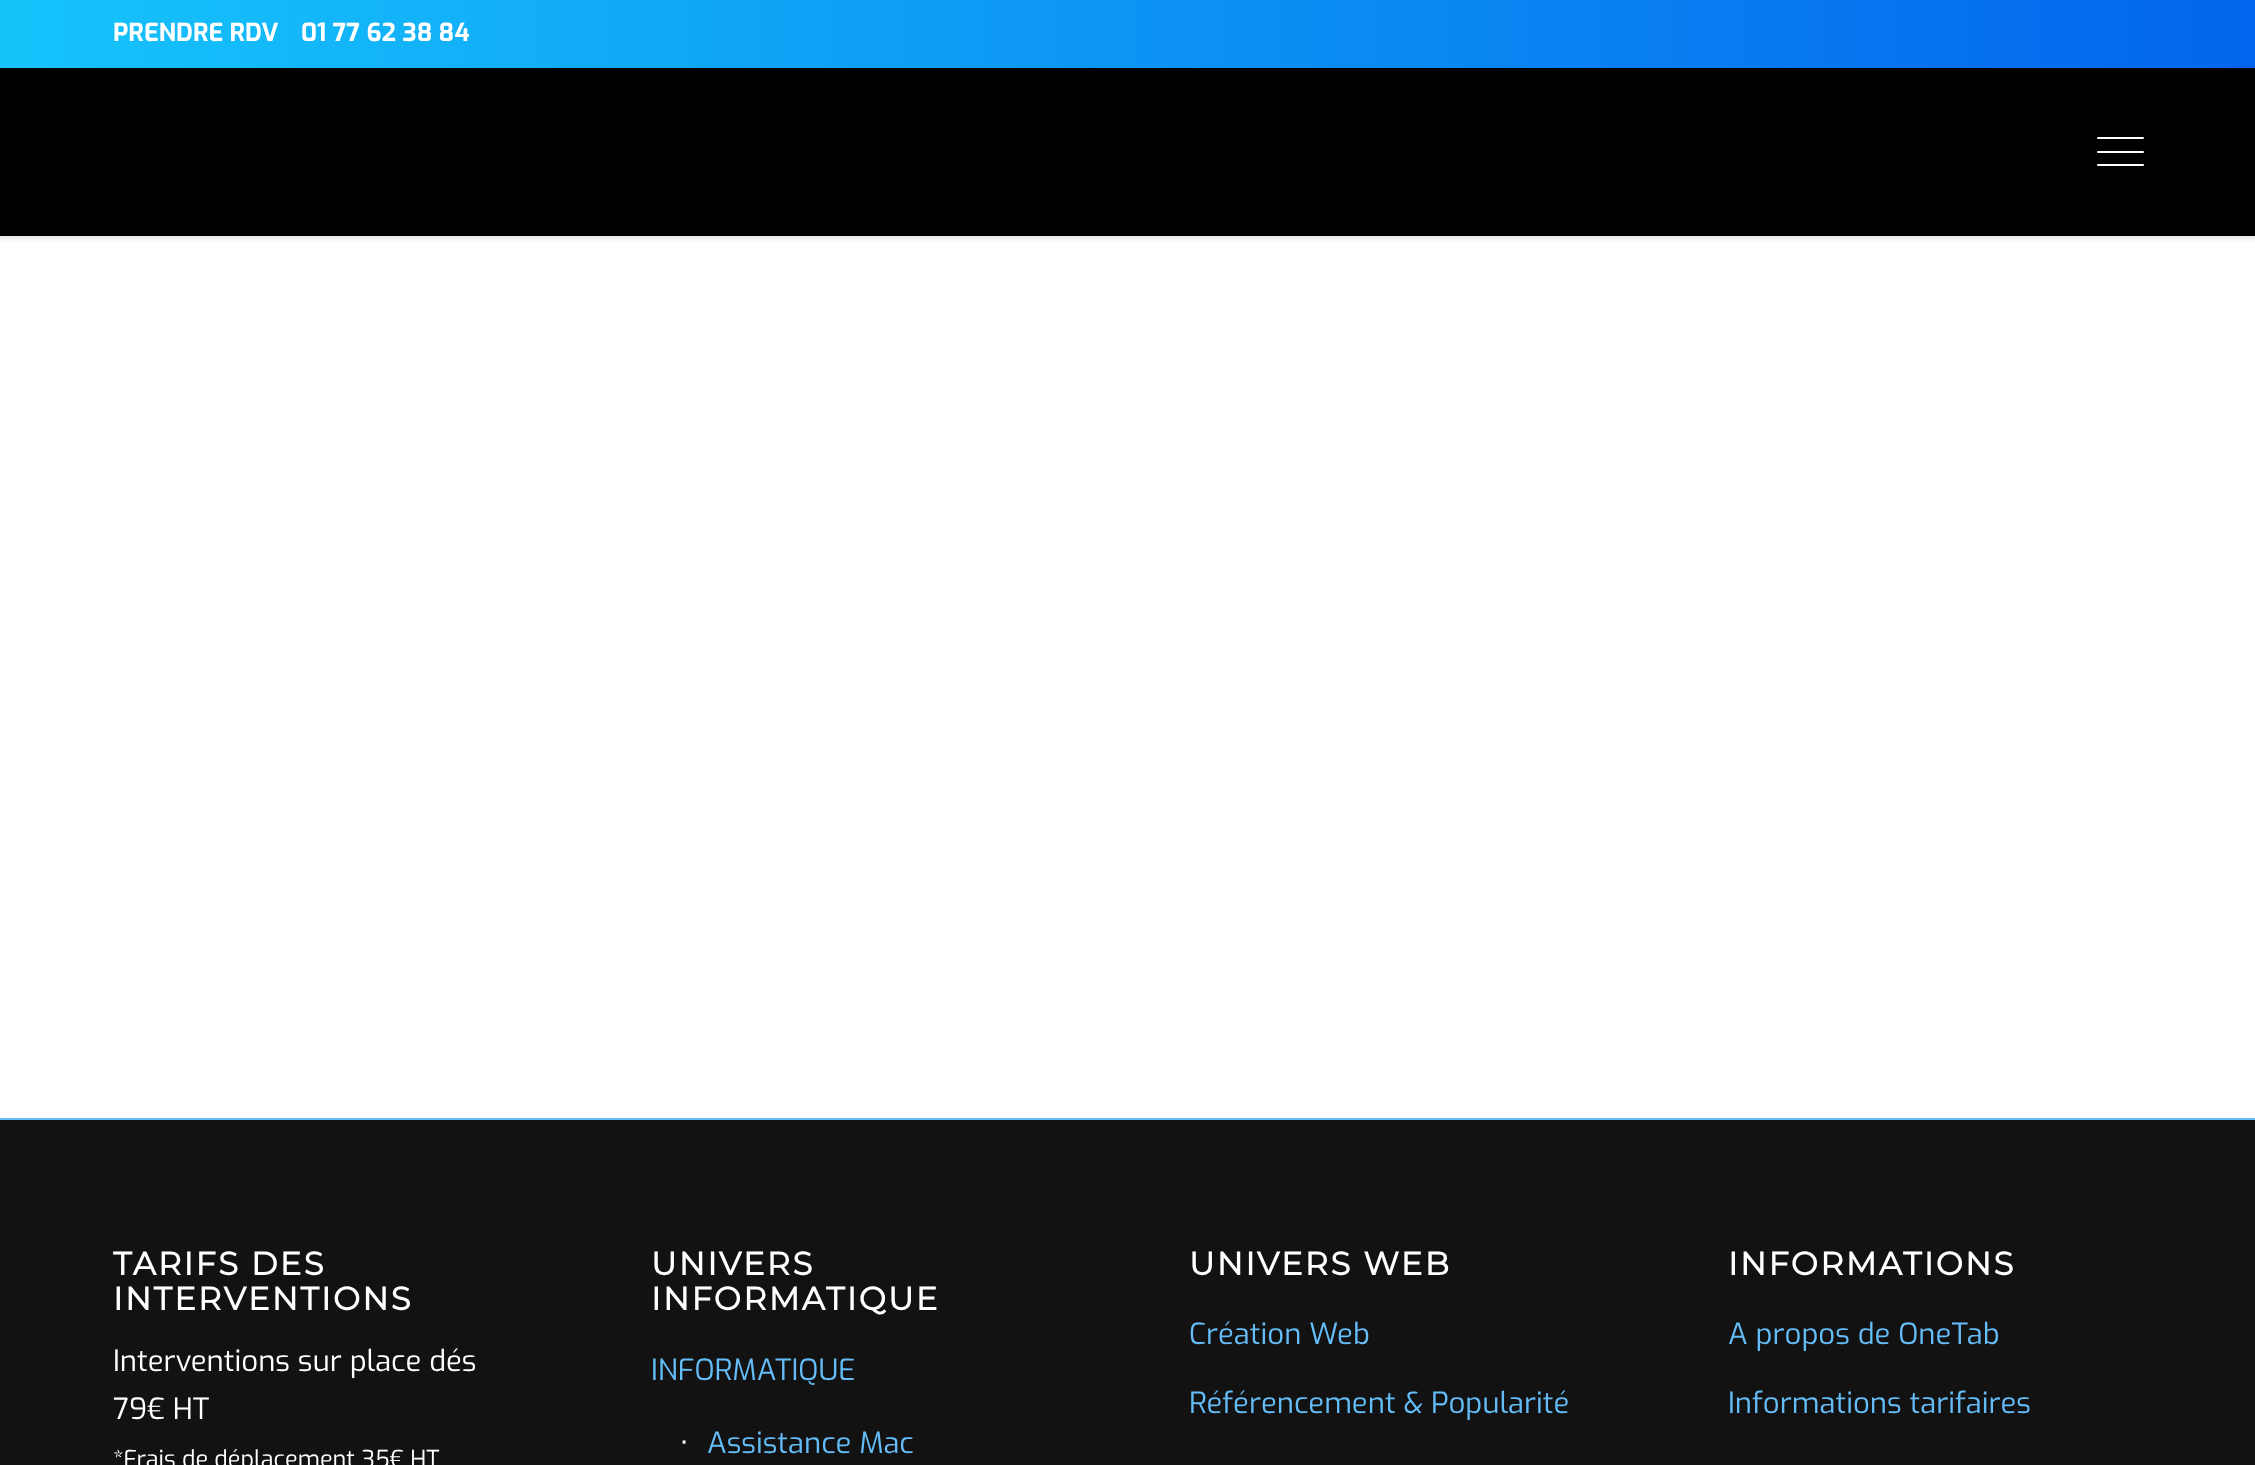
<svg xmlns="http://www.w3.org/2000/svg" width="2255" height="1465">
	<defs>
		<linearGradient id="g1" gradientUnits="userSpaceOnUse" x1="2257" y1="34" x2="0" y2="34"><stop offset="0" stop-color="#0365ED" /><stop offset="1" stop-color="#16C4FB" /></linearGradient>
		<clipPath id="clip1"><rect x="113" y="1222" width="416" height="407" /></clipPath>
	</defs>
	<rect width="100%" height="100%" fill="#FFFFFF" />
	<rect x="-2" y="-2" width="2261" height="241" fill="#000000" fill-opacity="0.1" filter="blur(2px)" />
	<rect x="0" y="0" width="2255" height="68" fill="url(#g1)" />
	<g font-family="Exo" font-size="24.75" font-weight="700" fill="#FFFFFF">
		<text x="113" y="41">PRENDRE RDV</text>
		<text x="301" y="41">01 77 62 38 84</text>
	</g>
	<rect x="0" y="68" width="2255" height="168" fill="#000000" />
	<rect x="2097" y="151" width="47" height="2" rx="1" fill="#FFFFFF" />
	<rect x="2097" y="137" width="47" height="2" rx="1" fill="#FFFFFF" />
	<rect x="2097" y="164" width="47" height="2" rx="1" fill="#FFFFFF" />
	<rect x="0" y="1120" width="2255" height="345" fill="#121212" />
	<rect x="0" y="1118" width="2255" height="2" fill="#65BDF8" />
	<g clip-path="url(#clip1)">
		<text x="113" y="1275" font-family="Montserrat" font-size="32.25" font-weight="700" letter-spacing="2.25" fill="#FFFFFF">TARIFS DES</text>
	</g>
	<text x="113" y="1310" font-family="Montserrat" font-size="32.25" font-weight="700" letter-spacing="2.25" fill="#FFFFFF">INTERVENTIONS</text>
	<g font-family="Exo" font-size="29.25" fill="#FFFFFF">
		<text x="113" y="1371">Interventions sur place dés</text>
		<text x="113" y="1419">79€ HT</text>
	</g>
	<text x="113" y="1467" font-family="Exo" font-size="23.4" fill="#FFFFFF">*Frais de déplacement 35€ HT</text>
	<g font-family="Montserrat" font-size="32.25" font-weight="700" letter-spacing="2.25" fill="#FFFFFF">
		<text x="651" y="1275">UNIVERS</text>
		<text x="651" y="1310">INFORMATIQUE</text>
	</g>
	<text x="651" y="1380" font-family="Exo" font-size="29.25" fill="#65BDF8">INFORMATIQUE</text>
	<text x="680" y="1450" font-family="Liberation Sans" font-size="29.25" fill="#FFFFFF">∙</text>
	<text x="707" y="1453" font-family="Exo" font-size="29.25" fill="#65BDF8">Assistance Mac</text>
	<text x="1189" y="1275" font-family="Montserrat" font-size="32.25" font-weight="700" letter-spacing="2.25" fill="#FFFFFF">UNIVERS WEB</text>
	<g font-family="Exo" font-size="29.25" fill="#65BDF8">
		<text x="1189" y="1344">Création Web</text>
		<text x="1189" y="1413">Référencement &amp; Popularité</text>
	</g>
	<text x="1728" y="1275" font-family="Montserrat" font-size="32.25" font-weight="700" letter-spacing="2.25" fill="#FFFFFF">INFORMATIONS</text>
	<g font-family="Exo" font-size="29.25" fill="#65BDF8">
		<text x="1728" y="1344">A propos de OneTab</text>
		<text x="1728" y="1413">Informations tarifaires</text>
	</g>
</svg>
